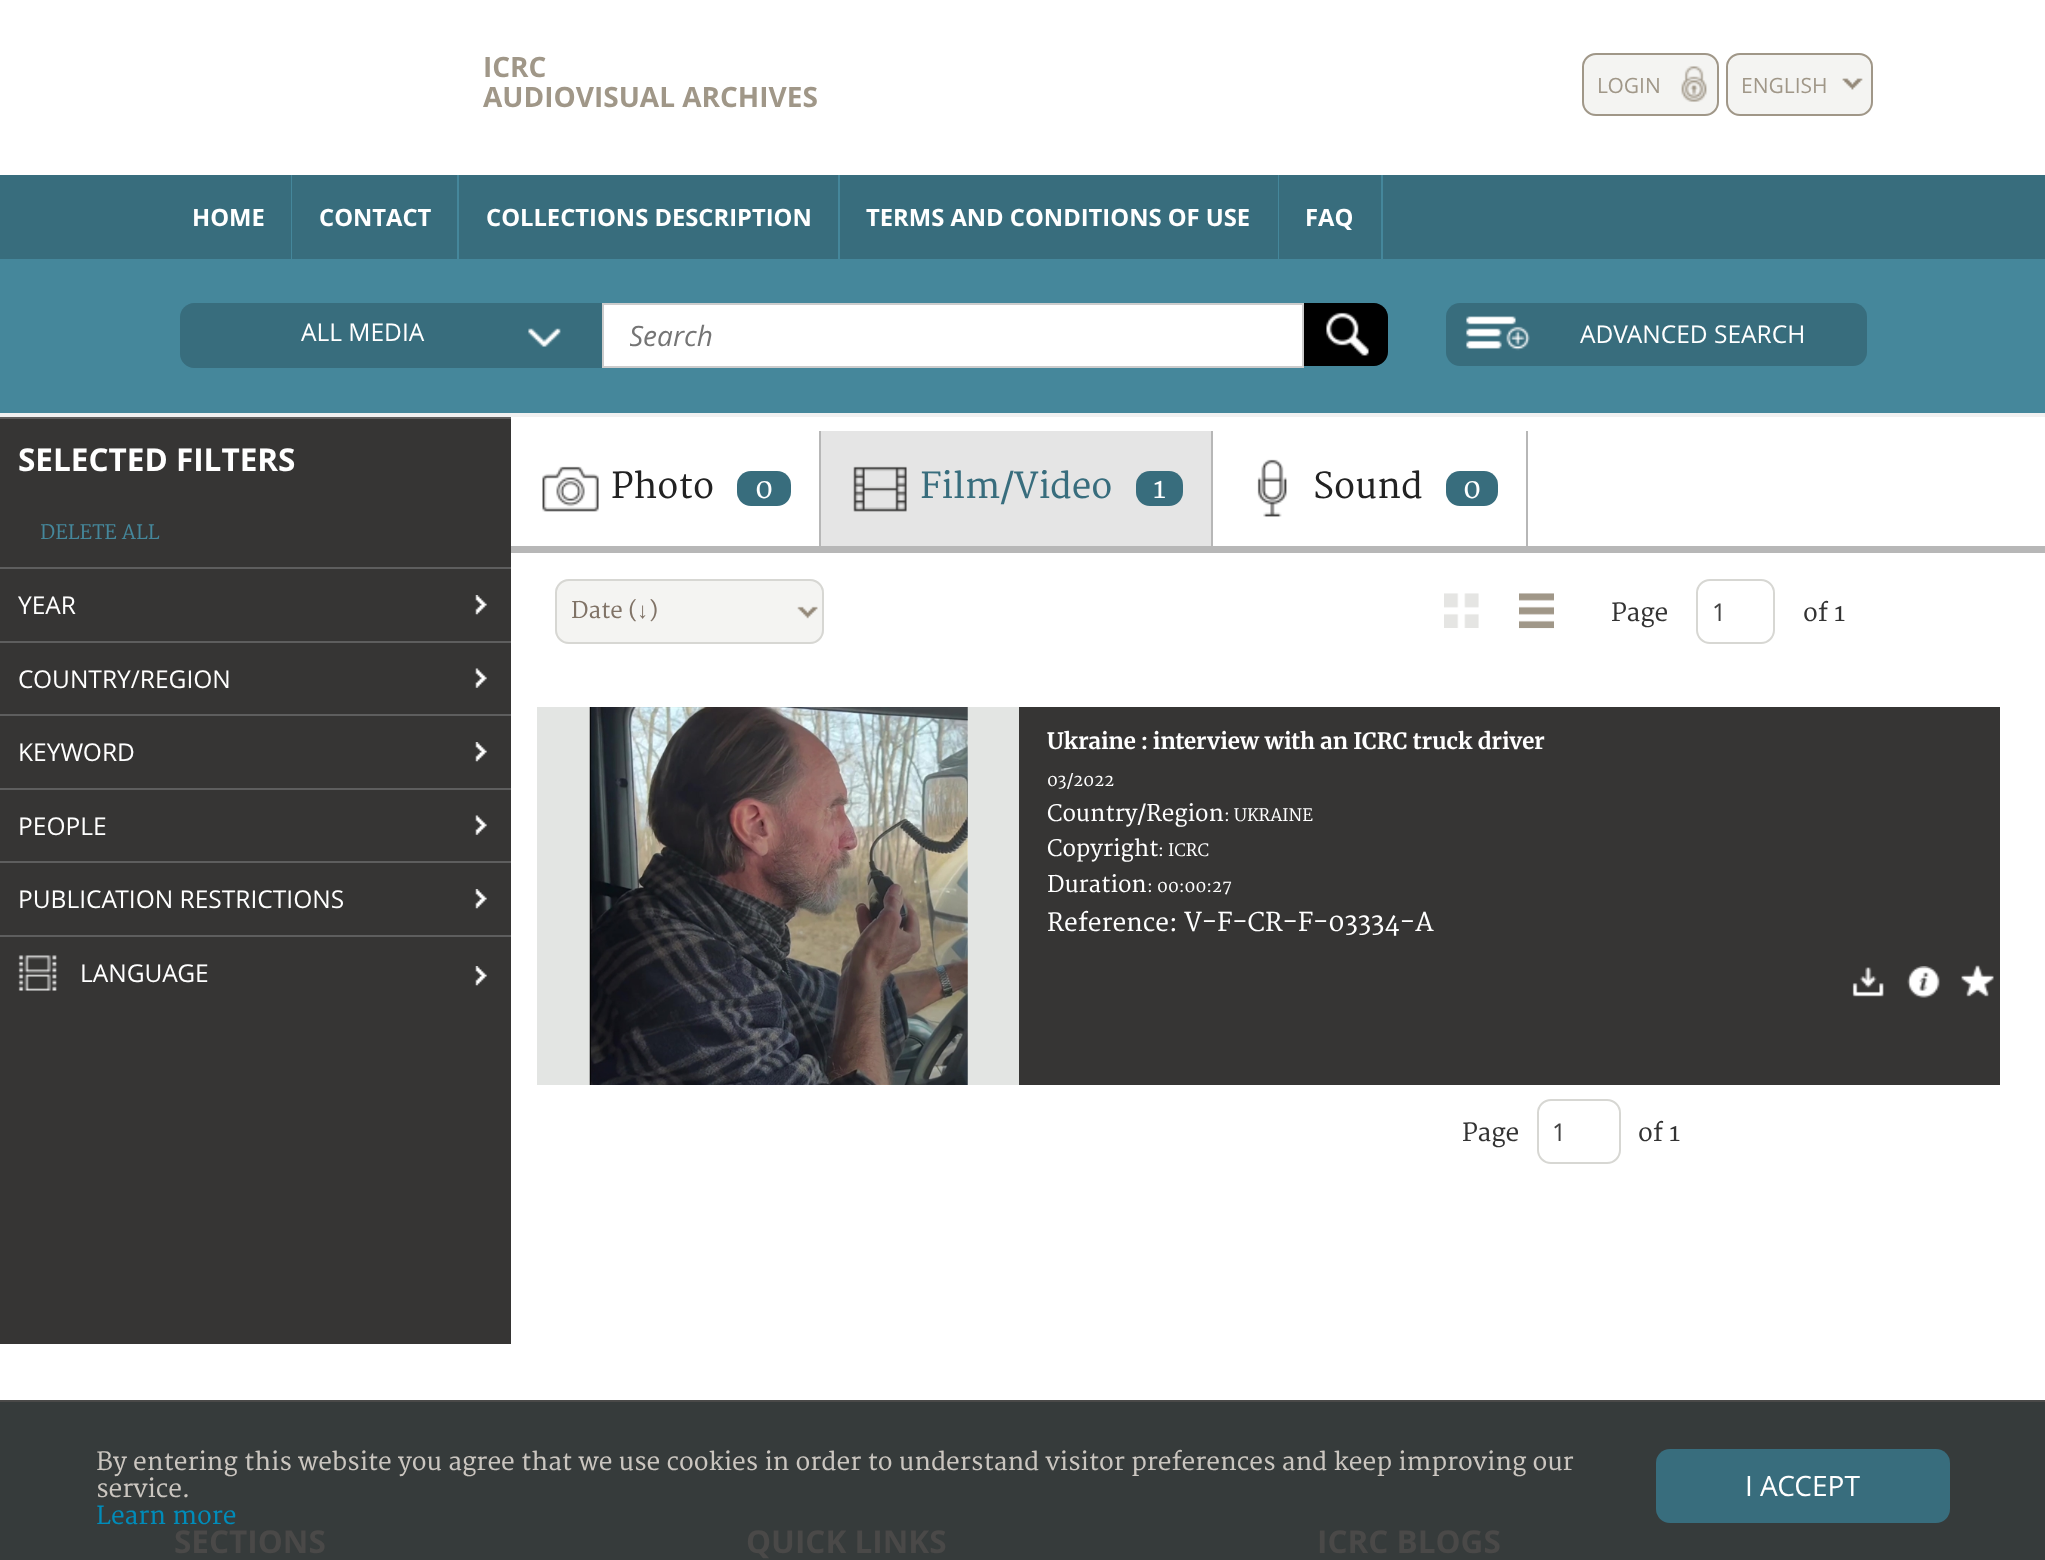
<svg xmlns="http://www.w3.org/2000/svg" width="2045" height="1560">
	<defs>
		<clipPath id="clip1"><rect x="630" y="317" width="639" height="38" /></clipPath>
	</defs>
	<rect width="100%" height="100%" fill="#FFFFFF" />
	<rect x="0" y="1400" width="2045" height="2" fill="#4A4948" />
	<g font-family="Open Sans" font-size="28" font-weight="700" fill="#A09788">
		<text x="483" y="77">ICRC</text>
		<text x="483" y="107">AUDIOVISUAL ARCHIVES</text>
	</g>
	<rect x="1582" y="53" width="137" height="63" rx="14" fill="#F4F4F2" />
	<image x="1681" y="66" width="26" height="36" href="assets/img1.png" />
	<rect x="1583" y="54" width="135" height="61" rx="13" fill="none" stroke="#A09788" stroke-width="2" />
	<text x="1597" y="93" font-family="Open Sans" font-size="21" fill="#A09788">LOGIN</text>
	<rect x="1726" y="53" width="147" height="63" rx="14" fill="#F4F4F2" />
	<image x="1842" y="78" width="21" height="12" href="assets/img2.png" />
	<rect x="1727" y="54" width="145" height="61" rx="13" fill="none" stroke="#A09788" stroke-width="2" />
	<text x="1741" y="93" font-family="Open Sans" font-size="21" fill="#A09788">ENGLISH</text>
	<rect x="0" y="175" width="2045" height="84" fill="#386D7D" />
	<rect x="291" y="175" width="1" height="84" fill="#45879B" />
	<text x="192" y="226" font-family="Open Sans" font-size="23.75" font-weight="700" fill="#FFFFFF">HOME</text>
	<rect x="457" y="175" width="2" height="84" fill="#45879B" />
	<text x="319" y="226" font-family="Open Sans" font-size="23.75" font-weight="700" fill="#FFFFFF">CONTACT</text>
	<rect x="838" y="175" width="2" height="84" fill="#45879B" />
	<text x="486" y="226" font-family="Open Sans" font-size="23.75" font-weight="700" fill="#FFFFFF">COLLECTIONS DESCRIPTION</text>
	<rect x="1278" y="175" width="1" height="84" fill="#45879B" />
	<text x="866" y="226" font-family="Open Sans" font-size="23.75" font-weight="700" fill="#FFFFFF">TERMS AND CONDITIONS OF USE</text>
	<rect x="1381" y="175" width="2" height="84" fill="#45879B" />
	<text x="1305" y="226" font-family="Open Sans" font-size="23.75" font-weight="700" fill="#FFFFFF">FAQ</text>
	<rect x="0" y="259" width="2045" height="154" fill="#45879B" />
	<rect x="0" y="413" width="2045" height="4" fill="#F1F1F1" />
	<path d="M194 303H602V368H194C186.5 368 180 361.5 180 354V317C180 309.5 186.5 303 194 303Z" fill="#386D7D" />
	<image x="528" y="328" width="33" height="19" href="assets/img3.png" />
	<text x="301" y="341" font-family="Open Sans" font-size="24.5" fill="#FFFFFF">ALL MEDIA</text>
	<rect x="603" y="304" width="700" height="63" fill="#FFFFFF" stroke="#CCCCCC" stroke-width="2" />
	<g clip-path="url(#clip1)">
		<text x="629" y="346" font-family="Open Sans" font-size="28" font-style="italic" fill="#757575">Search</text>
	</g>
	<path d="M1304 303H1374C1381.5 303 1388 309.5 1388 317V352C1388 359.5 1381.5 366 1374 366H1304Z" fill="#000000" />
	<image x="1326" y="312" width="43" height="44" href="assets/img4.png" />
	<rect x="1446" y="303" width="421" height="63" rx="14" fill="#386D7D" />
	<image x="1466" y="316" width="64" height="35" href="assets/img5.png" />
	<text x="1580" y="343" font-family="Open Sans" font-size="24.5" fill="#FFFFFF">ADVANCED SEARCH</text>
	<rect x="0" y="937" width="511" height="407" fill="#363534" />
	<rect x="0" y="419" width="511" height="148" fill="#363534" />
	<rect x="0" y="417" width="511" height="2" fill="#5E5E5E" />
	<text x="18" y="471" font-family="Open Sans" font-size="31.5" font-weight="700" fill="#FFFFFF">SELECTED FILTERS</text>
	<text x="40" y="539" font-family="Merriweather" font-size="19.5" fill="#45879B">DELETE ALL</text>
	<rect x="0" y="569" width="511" height="72" fill="#363534" />
	<image x="475" y="595" width="12" height="20" href="assets/img6.png" />
	<rect x="0" y="567" width="511" height="2" fill="#5E5E5E" />
	<text x="18" y="614" font-family="Open Sans" font-size="24.5" fill="#FFFFFF">YEAR</text>
	<rect x="0" y="643" width="511" height="71" fill="#363534" />
	<image x="475" y="668" width="12" height="20" href="assets/img7.png" />
	<rect x="0" y="641" width="511" height="2" fill="#5E5E5E" />
	<text x="18" y="688" font-family="Open Sans" font-size="24.5" fill="#FFFFFF">COUNTRY/REGION</text>
	<rect x="0" y="716" width="511" height="72" fill="#363534" />
	<image x="475" y="742" width="12" height="20" href="assets/img6.png" />
	<rect x="0" y="714" width="511" height="2" fill="#5E5E5E" />
	<text x="18" y="761" font-family="Open Sans" font-size="24.5" fill="#FFFFFF">KEYWORD</text>
	<rect x="0" y="790" width="511" height="71" fill="#363534" />
	<image x="475" y="815" width="12" height="20" href="assets/img7.png" />
	<rect x="0" y="788" width="511" height="2" fill="#5E5E5E" />
	<text x="18" y="835" font-family="Open Sans" font-size="24.5" fill="#FFFFFF">PEOPLE</text>
	<rect x="0" y="863" width="511" height="72" fill="#363534" />
	<image x="475" y="889" width="12" height="20" href="assets/img6.png" />
	<rect x="0" y="861" width="511" height="2" fill="#5E5E5E" />
	<text x="18" y="908" font-family="Open Sans" font-size="24.5" fill="#FFFFFF">PUBLICATION RESTRICTIONS</text>
	<image x="475" y="966" width="12" height="20" href="assets/img6.png" />
	<rect x="0" y="935" width="511" height="2" fill="#5E5E5E" />
	<image x="18" y="955" width="39" height="36" href="assets/img8.png" />
	<text x="80" y="982" font-family="Open Sans" font-size="24.5" fill="#FFFFFF">LANGUAGE</text>
	<rect x="511" y="546" width="1534" height="7" fill="#B7B7B7" />
	<rect x="819" y="431" width="2" height="115" fill="#B7B7B7" />
	<image x="542" y="466" width="57" height="46" href="assets/img9.png" />
	<text x="611" y="498" font-family="Merriweather" font-size="35" fill="#222222">Photo</text>
	<rect x="737" y="471" width="54" height="35" rx="14" fill="#386D7D" />
	<text x="755" y="498" font-family="Merriweather" font-size="28" fill="#FFFFFF">0</text>
	<rect x="1211" y="431" width="2" height="115" fill="#B7B7B7" />
	<rect x="821" y="431" width="390" height="115" fill="#E5E5E5" />
	<image x="853" y="466" width="54" height="46" href="assets/img10.png" />
	<text x="920" y="498" font-family="Merriweather" font-size="35" fill="#386D7D">Film/Video</text>
	<rect x="1136" y="471" width="47" height="35" rx="14" fill="#386D7D" />
	<text x="1153" y="498" font-family="Merriweather" font-size="28" fill="#FFFFFF">1</text>
	<rect x="1526" y="431" width="2" height="115" fill="#B7B7B7" />
	<image x="1257" y="459" width="30" height="58" href="assets/img11.png" />
	<text x="1313" y="498" font-family="Merriweather" font-size="35" fill="#222222">Sound</text>
	<rect x="1446" y="471" width="52" height="35" rx="14" fill="#386D7D" />
	<text x="1463" y="498" font-family="Merriweather" font-size="28" fill="#FFFFFF">0</text>
	<rect x="555" y="579" width="269" height="65" rx="14" fill="#F4F4F2" />
	<image x="797" y="606" width="21" height="13" href="assets/img12.png" />
	<rect x="556" y="580" width="267" height="63" rx="13" fill="none" stroke="#D7D7D3" stroke-width="2" />
	<text x="571" y="618" font-family="Merriweather" font-size="22.4" fill="#807367">Date (</text>
	<text x="637" y="618" font-family="Liberation Serif" font-size="22.4" fill="#807367">↓</text>
	<text x="649" y="618" font-family="Merriweather" font-size="22.4" fill="#807367">)</text>
	<image x="1444" y="593" width="35" height="35" href="assets/img13.png" />
	<image x="1519" y="593" width="35" height="36" href="assets/img14.png" />
	<text x="1611" y="621" font-family="Merriweather" font-size="24.5" fill="#333333">Page</text>
	<rect x="1697" y="580" width="77" height="63" rx="13" fill="none" stroke="#D7D7D3" stroke-width="2" />
	<text x="1712" y="621" font-family="Open Sans" font-size="24.5" fill="#404040">1</text>
	<text x="1803" y="621" font-family="Merriweather" font-size="24.5" fill="#333333">of 1</text>
	<rect x="1019" y="707" width="981" height="378" fill="#363534" />
	<rect x="537" y="707" width="482" height="378" fill="#E3E5E3" />
	<image x="589" y="707" width="379" height="378" href="assets/img15.png" />
	<text x="1047" y="749" font-family="Merriweather" font-size="22.4" font-weight="700" fill="#FFFFFF">Ukraine : interview with an ICRC truck driver</text>
	<text x="1047" y="786" font-family="Merriweather" font-size="16.75" fill="#FFFFFF">03/2022</text>
	<text x="1047" y="821" font-family="Merriweather" font-size="22.4" fill="#FFFFFF">Country/Region</text>
	<text x="1224" y="821" font-family="Merriweather" font-size="16.75" fill="#FFFFFF">: UKRAINE</text>
	<text x="1047" y="856" font-family="Merriweather" font-size="22.4" fill="#FFFFFF">Copyright</text>
	<text x="1158" y="856" font-family="Merriweather" font-size="16.75" fill="#FFFFFF">: ICRC</text>
	<text x="1047" y="892" font-family="Merriweather" font-size="22.4" fill="#FFFFFF">Duration</text>
	<text x="1147" y="892" font-family="Merriweather" font-size="16.75" fill="#FFFFFF">: 00:00:27</text>
	<text x="1047" y="931" font-family="Merriweather" font-size="24.5" fill="#FFFFFF">Reference</text>
	<text x="1169" y="931" font-family="Merriweather" font-size="25.25" fill="#FFFFFF">: V-F-CR-F-03334-A</text>
	<image x="1852" y="967" width="32" height="30" href="assets/img16.png" />
	<image x="1907" y="966" width="33" height="32" href="assets/img17.png" />
	<image x="1961" y="965" width="33" height="32" href="assets/img18.png" />
	<text x="1462" y="1141" font-family="Merriweather" font-size="24.5" fill="#333333">Page</text>
	<rect x="1538" y="1100" width="82" height="63" rx="13" fill="none" stroke="#D7D7D3" stroke-width="2" />
	<text x="1552" y="1141" font-family="Open Sans" font-size="24.5" fill="#404040">1</text>
	<text x="1638" y="1141" font-family="Merriweather" font-size="24.5" fill="#333333">of 1</text>
	<rect x="0" y="1402" width="2045" height="158" fill="#363B3B" />
	<g font-family="Merriweather" font-size="24.5" fill="#CBC6C0">
		<text x="96" y="1470">By entering this website you agree that we use cookies in order to understand visitor preferences and keep improving our</text>
		<text x="96" y="1497">service.</text>
	</g>
	<text x="96" y="1524" font-family="Merriweather" font-size="24.5" fill="#008CBA">Learn more</text>
	<rect x="1656" y="1449" width="294" height="74" rx="14" fill="#386D7D" />
	<text x="1745" y="1496" font-family="Open Sans" font-size="28" fill="#FFFFFF">I ACCEPT</text>
	<g font-family="Open Sans" font-size="31.5" font-weight="700" fill="#4A4948">
		<text x="174" y="1553">SECTIONS</text>
		<text x="746" y="1553">QUICK LINKS</text>
		<text x="1317" y="1553">ICRC BLOGS</text>
	</g>
</svg>
